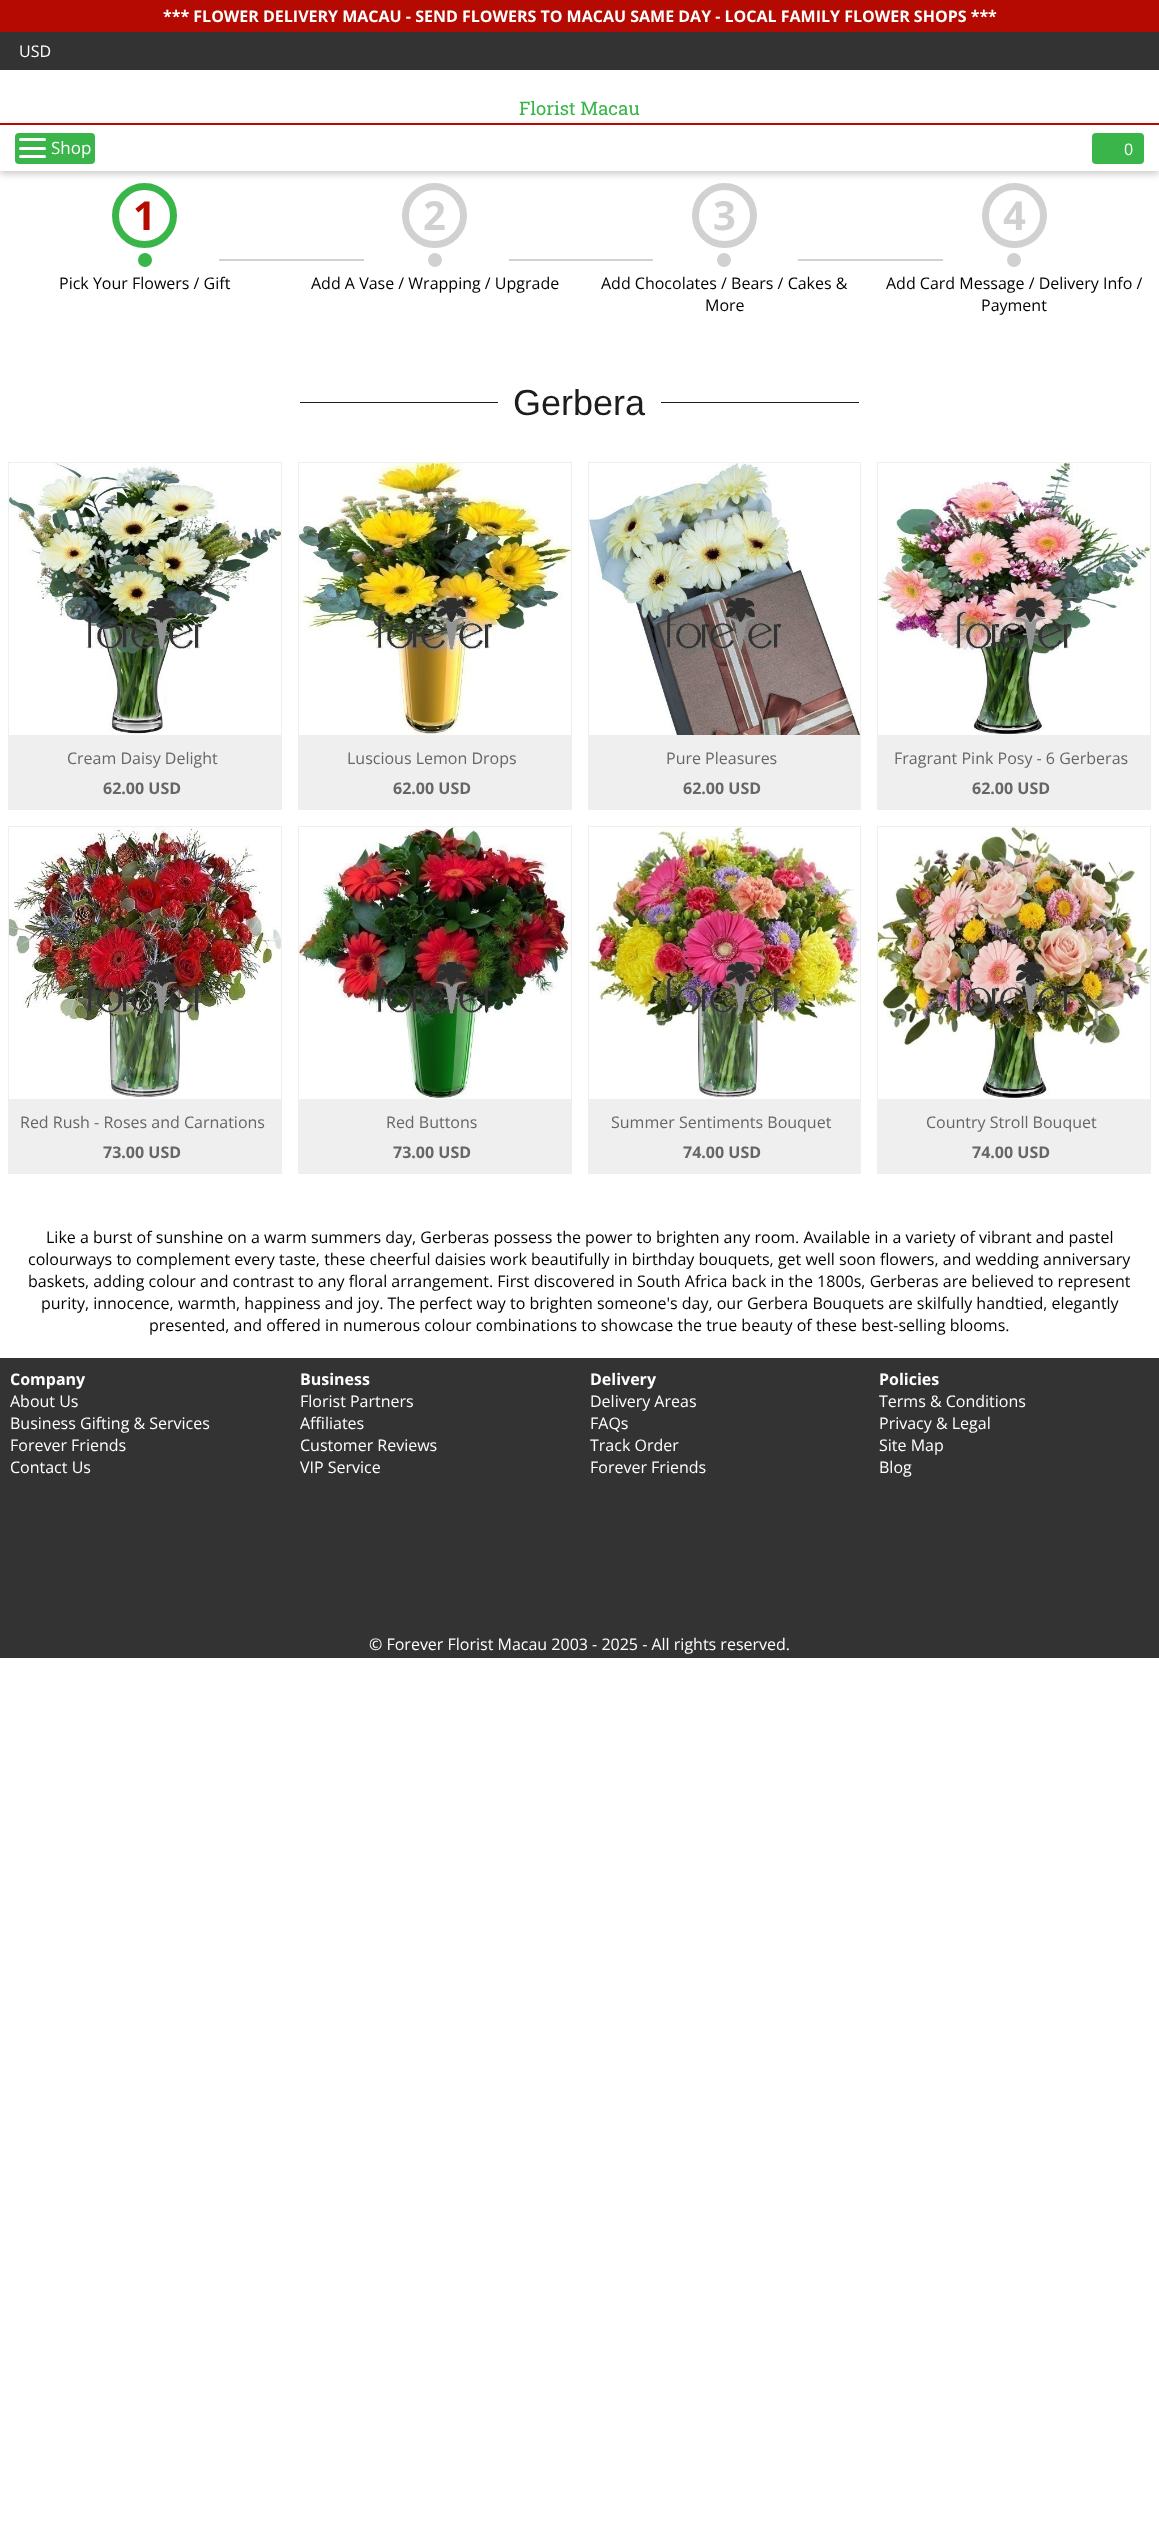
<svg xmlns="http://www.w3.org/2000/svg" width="1159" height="2537">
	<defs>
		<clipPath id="clip1"><path d="M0 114H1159V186H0ZM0 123H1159V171H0Z" clip-rule="evenodd" /></clipPath>
	</defs>
	<rect width="100%" height="100%" fill="#FFFFFF" />
	<rect x="0" y="0" width="1159" height="32" fill="#B50A01" />
	<text x="163" y="22" font-family="Open Sans" font-size="16" font-weight="700" fill="#FFFFFF">*** FLOWER DELIVERY MACAU - SEND FLOWERS TO MACAU SAME DAY - LOCAL FAMILY FLOWER SHOPS ***</text>
	<rect x="0" y="32" width="1159" height="38" fill="#333333" />
	<text x="19" y="57" font-family="Open Sans" font-size="16" fill="#FFFFFF">USD</text>
	<text x="519" y="115" font-family="Roboto Slab" font-size="18.5" fill="#39B54A">Florist Macau</text>
	<g clip-path="url(#clip1)">
		<rect x="0" y="126" width="1159" height="48" fill="#000000" fill-opacity="0.2" filter="blur(3.5px)" />
	</g>
	<rect x="0" y="123" width="1159" height="2" fill="#B50A01" />
	<rect x="15" y="133" width="80" height="31" rx="4" fill="#39B54A" />
	<rect x="19" y="138" width="27" height="3" rx="1.5" fill="#FFFFFF" />
	<rect x="19" y="147" width="27" height="3" rx="1.5" fill="#FFFFFF" />
	<text x="51" y="154" font-family="Open Sans" font-size="17" fill="#FFFFFF">Shop</text>
	<rect x="19" y="155" width="27" height="3" rx="1.5" fill="#FFFFFF" />
	<rect x="1092" y="133" width="52" height="31" rx="4" fill="#39B54A" />
	<text x="1124" y="155" font-family="Open Sans" font-size="16" fill="#FFFFFF">0</text>
	<circle cx="144.5" cy="215.5" r="29" fill="none" stroke="#39B54A" stroke-width="7" />
	<text x="133" y="230" font-family="Open Sans" font-size="40" font-weight="700" fill="#B50A01">1</text>
	<circle cx="145" cy="260" r="9.5" fill="#39B54A" stroke="#FFFFFF" stroke-width="5" />
	<text x="59" y="289" font-family="Open Sans" font-size="16" fill="#000000">Pick Your Flowers / Gift</text>
	<circle cx="434.5" cy="215.5" r="29" fill="none" stroke="#D1D1D1" stroke-width="7" />
	<text x="423" y="230" font-family="Open Sans" font-size="40" font-weight="700" fill="#D1D1D1">2</text>
	<rect x="219" y="259" width="145" height="2" fill="#D1D1D1" />
	<circle cx="435" cy="260" r="9.5" fill="#D1D1D1" stroke="#FFFFFF" stroke-width="5" />
	<text x="311" y="289" font-family="Open Sans" font-size="16" fill="#000000">Add A Vase / Wrapping / Upgrade</text>
	<circle cx="724.5" cy="215.5" r="29" fill="none" stroke="#D1D1D1" stroke-width="7" />
	<text x="713" y="230" font-family="Open Sans" font-size="40" font-weight="700" fill="#D1D1D1">3</text>
	<rect x="509" y="259" width="144" height="2" fill="#D1D1D1" />
	<circle cx="724" cy="260" r="9.5" fill="#D1D1D1" stroke="#FFFFFF" stroke-width="5" />
	<g font-family="Open Sans" font-size="16" fill="#000000">
		<text x="601" y="289">Add Chocolates / Bears / Cakes &amp;</text>
		<text x="705" y="311">More</text>
	</g>
	<circle cx="1014.5" cy="215.5" r="29" fill="none" stroke="#D1D1D1" stroke-width="7" />
	<text x="1003" y="230" font-family="Open Sans" font-size="40" font-weight="700" fill="#D1D1D1">4</text>
	<rect x="798" y="259" width="145" height="2" fill="#D1D1D1" />
	<circle cx="1014" cy="260" r="9.5" fill="#D1D1D1" stroke="#FFFFFF" stroke-width="5" />
	<g font-family="Open Sans" font-size="16" fill="#000000">
		<text x="886" y="289">Add Card Message / Delivery Info /</text>
		<text x="981" y="311">Payment</text>
	</g>
	<rect x="300" y="402" width="198" height="1" fill="#1D1D1B" />
	<text x="513" y="415" font-family="Liberation Sans" font-size="36" fill="#1D1D1B">Gerbera</text>
	<rect x="661" y="402" width="198" height="1" fill="#1D1D1B" />
	<rect x="8" y="462" width="274" height="348" fill="#EFEFEF" />
	<image x="9" y="463" width="68" height="272" href="assets/img1.png" />
	<image x="77" y="463" width="68" height="272" href="assets/img2.png" />
	<image x="145" y="463" width="68" height="272" href="assets/img3.png" />
	<image x="213" y="463" width="68" height="272" href="assets/img4.png" />
	<text x="67" y="764" font-family="Open Sans" font-size="16" fill="#666666">Cream Daisy Delight</text>
	<text x="103" y="794" font-family="Open Sans" font-size="16" font-weight="700" fill="#666666">62.00 USD</text>
	<rect x="298" y="462" width="274" height="348" fill="#EFEFEF" />
	<image x="299" y="463" width="68" height="272" href="assets/img5.png" />
	<image x="367" y="463" width="68" height="272" href="assets/img6.png" />
	<image x="435" y="463" width="68" height="272" href="assets/img7.png" />
	<image x="503" y="463" width="68" height="272" href="assets/img8.png" />
	<text x="347" y="764" font-family="Open Sans" font-size="16" fill="#666666">Luscious Lemon Drops</text>
	<text x="393" y="794" font-family="Open Sans" font-size="16" font-weight="700" fill="#666666">62.00 USD</text>
	<rect x="588" y="462" width="273" height="348" fill="#EFEFEF" />
	<image x="589" y="463" width="67" height="272" href="assets/img9.png" />
	<image x="656" y="463" width="68" height="272" href="assets/img10.png" />
	<image x="724" y="463" width="68" height="272" href="assets/img11.png" />
	<image x="792" y="463" width="68" height="272" href="assets/img12.png" />
	<text x="666" y="764" font-family="Open Sans" font-size="16" fill="#666666">Pure Pleasures</text>
	<text x="683" y="794" font-family="Open Sans" font-size="16" font-weight="700" fill="#666666">62.00 USD</text>
	<rect x="877" y="462" width="274" height="348" fill="#EFEFEF" />
	<image x="878" y="463" width="68" height="272" href="assets/img13.png" />
	<image x="946" y="463" width="68" height="272" href="assets/img14.png" />
	<image x="1014" y="463" width="68" height="272" href="assets/img15.png" />
	<image x="1082" y="463" width="68" height="272" href="assets/img16.png" />
	<text x="894" y="764" font-family="Open Sans" font-size="16" fill="#666666">Fragrant Pink Posy - 6 Gerberas</text>
	<text x="972" y="794" font-family="Open Sans" font-size="16" font-weight="700" fill="#666666">62.00 USD</text>
	<rect x="8" y="826" width="274" height="348" fill="#EFEFEF" />
	<image x="9" y="827" width="68" height="272" href="assets/img17.png" />
	<image x="77" y="827" width="68" height="272" href="assets/img18.png" />
	<image x="145" y="827" width="68" height="272" href="assets/img19.png" />
	<image x="213" y="827" width="68" height="272" href="assets/img20.png" />
	<text x="20" y="1128" font-family="Open Sans" font-size="16" fill="#666666">Red Rush - Roses and Carnations</text>
	<text x="103" y="1158" font-family="Open Sans" font-size="16" font-weight="700" fill="#666666">73.00 USD</text>
	<rect x="298" y="826" width="274" height="348" fill="#EFEFEF" />
	<image x="299" y="827" width="68" height="272" href="assets/img21.png" />
	<image x="367" y="827" width="68" height="272" href="assets/img22.png" />
	<image x="435" y="827" width="68" height="272" href="assets/img23.png" />
	<image x="503" y="827" width="68" height="272" href="assets/img24.png" />
	<text x="386" y="1128" font-family="Open Sans" font-size="16" fill="#666666">Red Buttons</text>
	<text x="393" y="1158" font-family="Open Sans" font-size="16" font-weight="700" fill="#666666">73.00 USD</text>
	<rect x="588" y="826" width="273" height="348" fill="#EFEFEF" />
	<image x="589" y="827" width="67" height="272" href="assets/img25.png" />
	<image x="656" y="827" width="68" height="272" href="assets/img26.png" />
	<image x="724" y="827" width="68" height="272" href="assets/img27.png" />
	<image x="792" y="827" width="68" height="272" href="assets/img28.png" />
	<text x="611" y="1128" font-family="Open Sans" font-size="16" fill="#666666">Summer Sentiments Bouquet</text>
	<text x="683" y="1158" font-family="Open Sans" font-size="16" font-weight="700" fill="#666666">74.00 USD</text>
	<rect x="877" y="826" width="274" height="348" fill="#EFEFEF" />
	<image x="878" y="827" width="68" height="272" href="assets/img29.png" />
	<image x="946" y="827" width="68" height="272" href="assets/img30.png" />
	<image x="1014" y="827" width="68" height="272" href="assets/img31.png" />
	<image x="1082" y="827" width="68" height="272" href="assets/img32.png" />
	<text x="926" y="1128" font-family="Open Sans" font-size="16" fill="#666666">Country Stroll Bouquet</text>
	<text x="972" y="1158" font-family="Open Sans" font-size="16" font-weight="700" fill="#666666">74.00 USD</text>
	<g font-family="Open Sans" font-size="16" fill="#000000">
		<text x="46" y="1243">Like a burst of sunshine on a warm summers day, Gerberas possess the power to brighten any room. Available in a variety of vibrant and pastel</text>
		<text x="28" y="1265">colourways to complement every taste, these cheerful daisies work beautifully in birthday bouquets, get well soon flowers, and wedding anniversary</text>
		<text x="28" y="1287">baskets, adding colour and contrast to any floral arrangement. First discovered in South Africa back in the 1800s, Gerberas are believed to represent</text>
		<text x="41" y="1309">purity, innocence, warmth, happiness and joy. The perfect way to brighten someone's day, our Gerbera Bouquets are skilfully handtied, elegantly</text>
		<text x="149" y="1331">presented, and offered in numerous colour combinations to showcase the true beauty of these best-selling blooms.</text>
	</g>
	<rect x="0" y="1358" width="1159" height="300" fill="#333333" />
	<text x="10" y="1385" font-family="Open Sans" font-size="16" font-weight="700" fill="#FFFFFF">Company</text>
	<g font-family="Open Sans" font-size="16" fill="#FFFFFF">
		<text x="10" y="1407">About Us</text>
		<text x="10" y="1429">Business Gifting &amp; Services</text>
		<text x="10" y="1451">Forever Friends</text>
		<text x="10" y="1473">Contact Us</text>
	</g>
	<text x="300" y="1385" font-family="Open Sans" font-size="16" font-weight="700" fill="#FFFFFF">Business</text>
	<g font-family="Open Sans" font-size="16" fill="#FFFFFF">
		<text x="300" y="1407">Florist Partners</text>
		<text x="300" y="1429">Affiliates</text>
		<text x="300" y="1451">Customer Reviews</text>
		<text x="300" y="1473">VIP Service</text>
	</g>
	<text x="590" y="1385" font-family="Open Sans" font-size="16" font-weight="700" fill="#FFFFFF">Delivery</text>
	<g font-family="Open Sans" font-size="16" fill="#FFFFFF">
		<text x="590" y="1407">Delivery Areas</text>
		<text x="590" y="1429">FAQs</text>
		<text x="590" y="1451">Track Order</text>
		<text x="590" y="1473">Forever Friends</text>
	</g>
	<text x="879" y="1385" font-family="Open Sans" font-size="16" font-weight="700" fill="#FFFFFF">Policies</text>
	<g font-family="Open Sans" font-size="16" fill="#FFFFFF">
		<text x="879" y="1407">Terms &amp; Conditions</text>
		<text x="879" y="1429">Privacy &amp; Legal</text>
		<text x="879" y="1451">Site Map</text>
		<text x="879" y="1473">Blog</text>
		<text x="369" y="1650">© Forever Florist Macau 2003 - 2025 - All rights reserved.</text>
	</g>
</svg>
